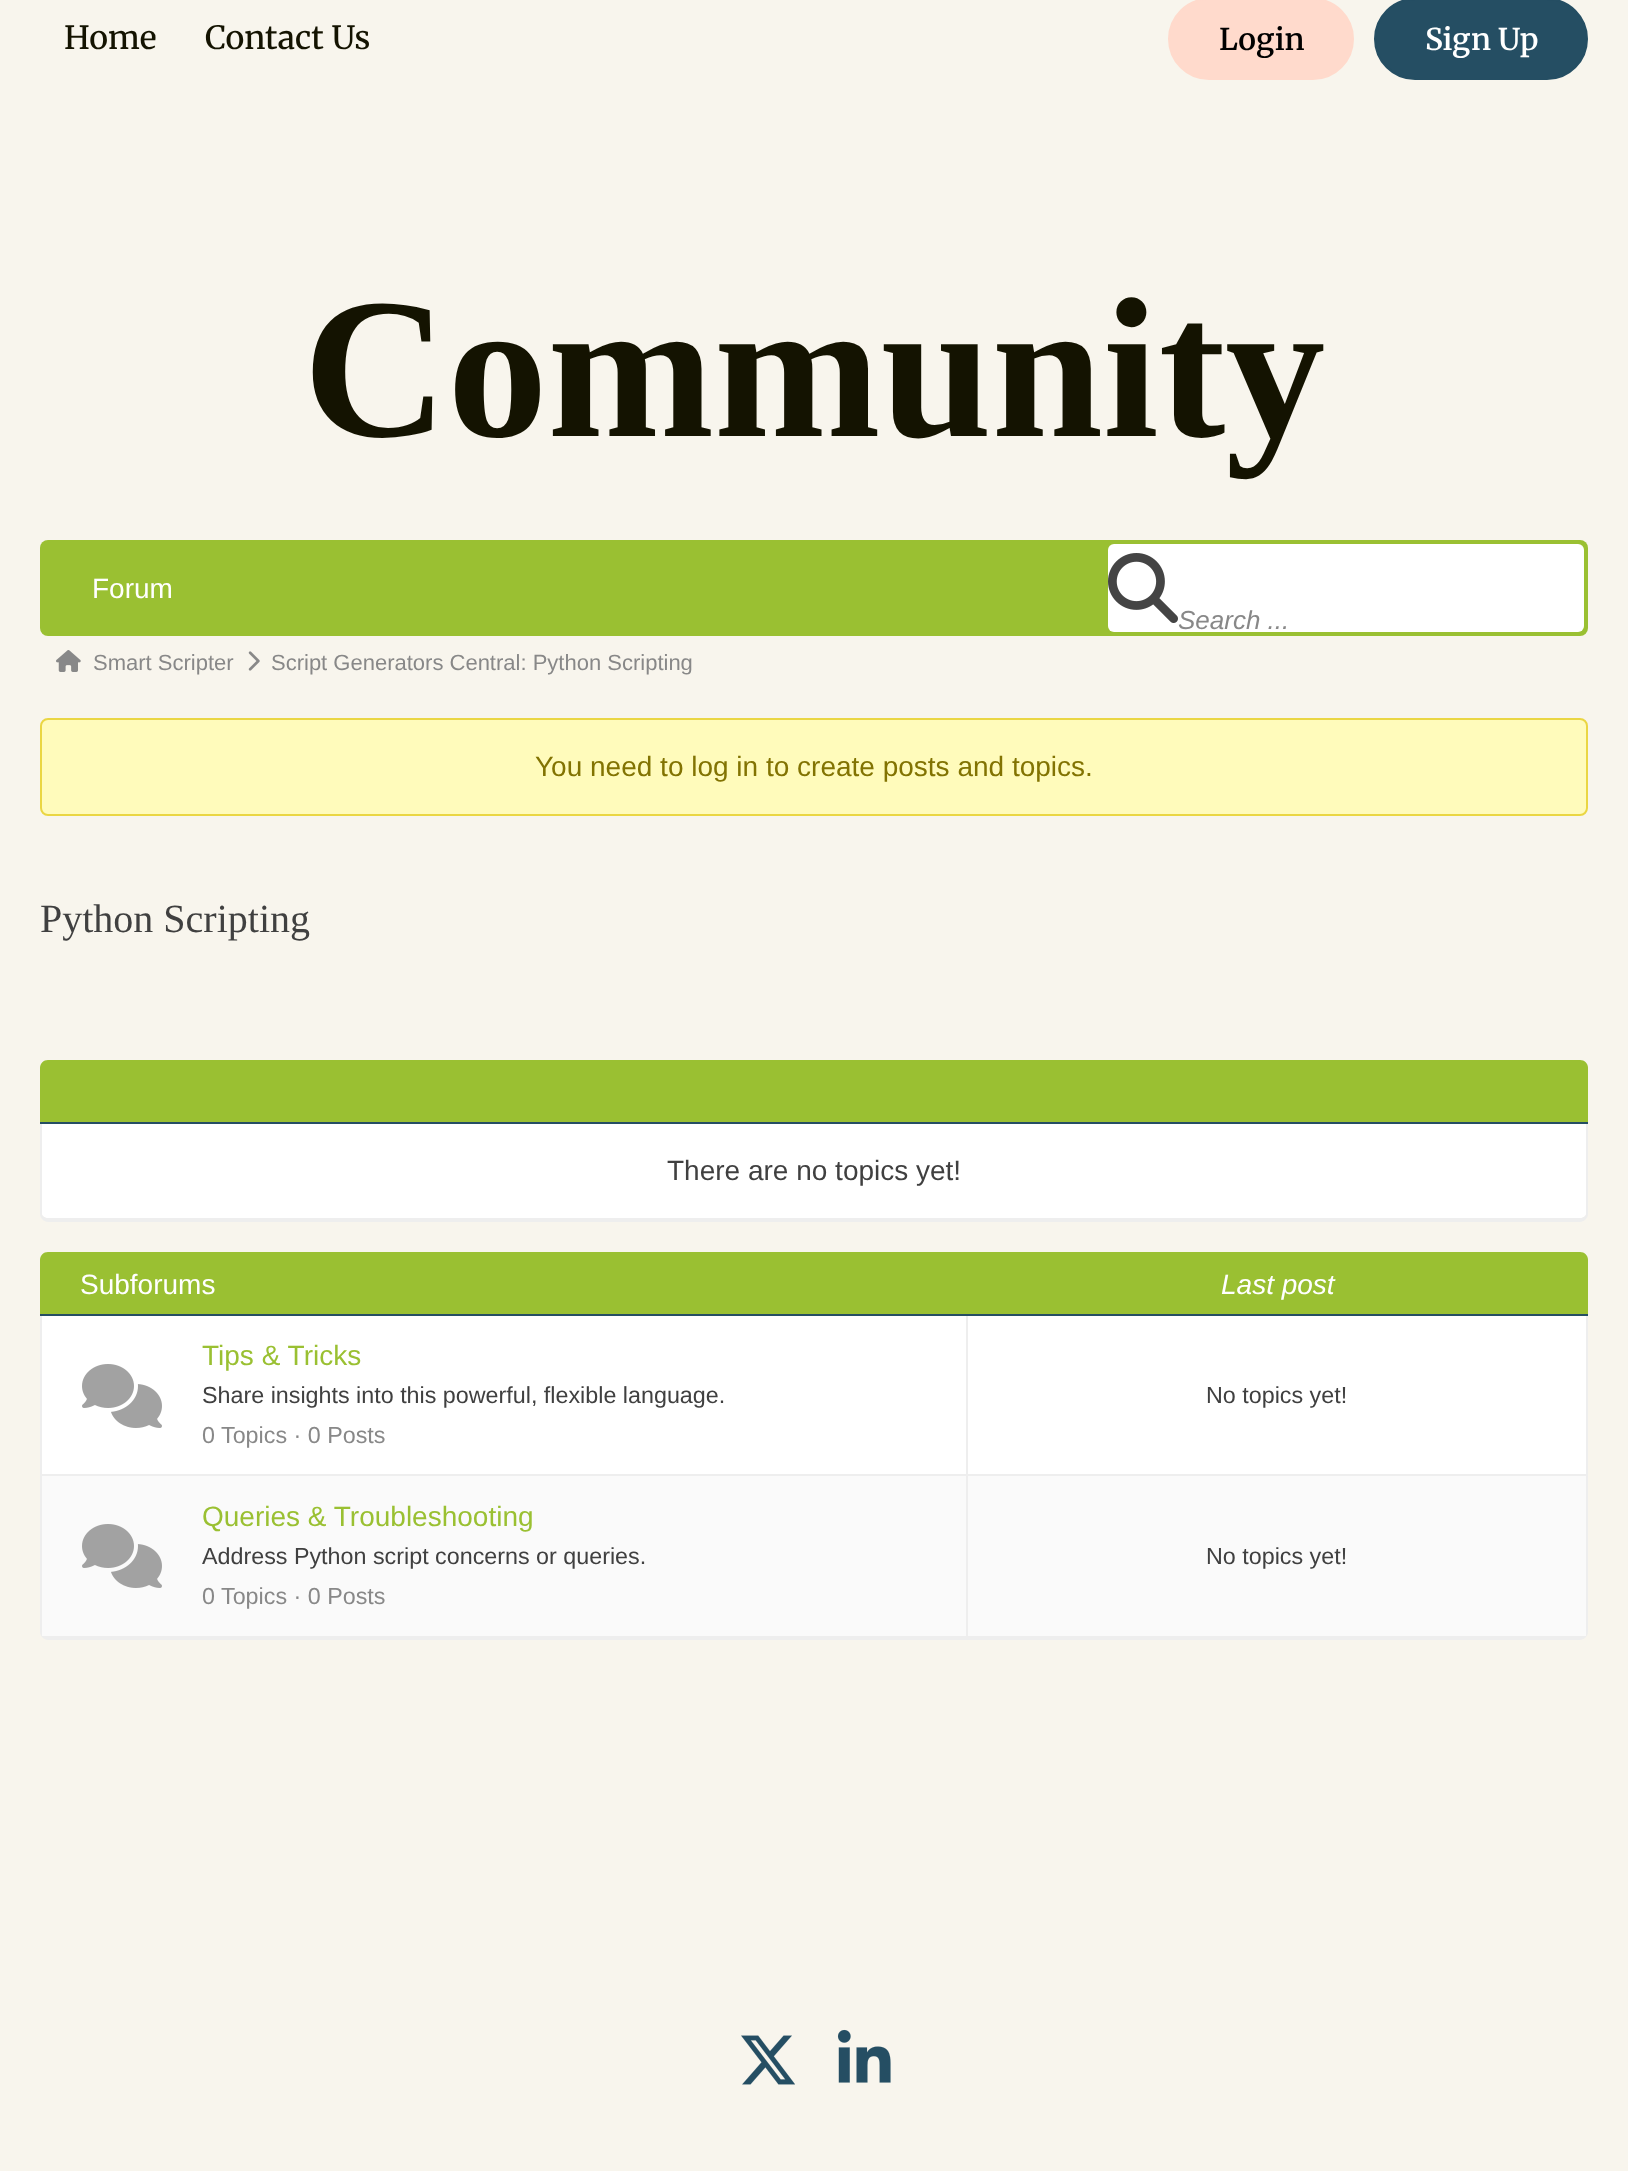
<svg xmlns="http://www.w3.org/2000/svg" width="1628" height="2171">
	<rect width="100%" height="100%" fill="#F8F5ED" />
	<g font-family="Merriweather" font-size="32" font-weight="500" fill="#141301">
		<text x="64" y="49">Home</text>
		<text x="205" y="49">Contact Us</text>
	</g>
	<rect x="1169" y="-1" width="184" height="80" rx="40" fill="#FFDACC" stroke="#FFDACC" stroke-width="2" />
	<text x="1219" y="50" font-family="Merriweather" font-size="30" font-weight="600" fill="#000000">Login</text>
	<rect x="1375" y="-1" width="212" height="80" rx="40" fill="#254E63" stroke="#254E63" stroke-width="2" />
	<text x="1425" y="50" font-family="Merriweather" font-size="30" font-weight="600" fill="#FFFFFF">Sign Up</text>
	<text x="303" y="436" font-family="Liberation Serif" font-size="200" font-weight="700" fill="#141301">Community</text>
	<rect x="40" y="540" width="1548" height="96" rx="8" fill="#9AC032" />
	<text x="92" y="598" font-family="Liberation Sans" font-size="28" fill="#FFFFFF">Forum</text>
	<rect x="1108" y="544" width="476" height="88" rx="6" fill="#FFFFFF" />
	<image x="1108" y="553" width="70" height="70" href="assets/img1.png" />
	<text x="1178" y="629" font-family="Liberation Sans" font-size="26" font-style="italic" fill="#888888">Search ...</text>
	<image x="56" y="650" width="25" height="22" href="assets/img2.png" />
	<text x="93" y="670" font-family="Liberation Sans" font-size="22" fill="#888888">Smart Scripter</text>
	<image x="248" y="651" width="12" height="20" href="assets/img3.png" />
	<text x="271" y="670" font-family="Liberation Sans" font-size="22" fill="#888888">Script Generators Central: Python Scripting</text>
	<rect x="41" y="719" width="1546" height="96" rx="7" fill="#FFFBBB" stroke="#EAD643" stroke-width="2" />
	<text x="535" y="776" font-family="Liberation Sans" font-size="28" fill="#827302">You need to log in to create posts and topics.</text>
	<text x="40" y="932" font-family="Liberation Serif" font-size="40" fill="#404040">Python Scripting</text>
	<path d="M48 1060H1580C1584.5 1060 1588 1063.5 1588 1068V1124H40V1068C40 1063.5 43.5 1060 48 1060Z" fill="#9AC032" />
	<rect x="40" y="1122" width="1548" height="2" fill="#254E63" />
	<path d="M42 1124H1586V1214C1586 1216 1583 1218 1580 1218H48C45 1218 42 1216 42 1214Z" fill="#FFFFFF" />
	<path d="M40 1124H1588V1214C1588 1218 1584 1222 1580 1222H48C44 1222 40 1218 40 1214ZM42 1124H1586V1214C1586 1216 1583 1218 1580 1218H48C45 1218 42 1216 42 1214Z" fill="#EEEEEE" fill-rule="evenodd" />
	<text x="667" y="1180" font-family="Liberation Sans" font-size="28" fill="#404040">There are no topics yet!</text>
	<path d="M48 1252H1580C1584.5 1252 1588 1255.5 1588 1260V1316H40V1260C40 1255.5 43.5 1252 48 1252Z" fill="#9AC032" />
	<rect x="40" y="1314" width="1548" height="2" fill="#254E63" />
	<text x="80" y="1294" font-family="Liberation Sans" font-size="28" fill="#FFFFFF">Subforums</text>
	<text x="1221" y="1294" font-family="Liberation Sans" font-size="28" font-style="italic" fill="#FFFFFF">Last post</text>
	<path d="M42 1316H1586V1632C1586 1634 1583 1636 1580 1636H48C45 1636 42 1634 42 1632Z" fill="#FFFFFF" />
	<path d="M40 1316H1588V1632C1588 1636 1584 1640 1580 1640H48C44 1640 40 1636 40 1632ZM42 1316H1586V1632C1586 1634 1583 1636 1580 1636H48C45 1636 42 1634 42 1632Z" fill="#EEEEEE" fill-rule="evenodd" />
	<rect x="42" y="1474" width="1544" height="2" fill="#EEEEEE" />
	<image x="82" y="1364" width="80" height="64" href="assets/img4.png" />
	<text x="202" y="1365" font-family="Liberation Sans" font-size="28" fill="#9AC032">Tips &amp; Tricks</text>
	<text x="202" y="1403" font-family="Liberation Sans" font-size="23.3" fill="#404040">Share insights into this powerful, flexible language.</text>
	<text x="202" y="1443" font-family="Liberation Sans" font-size="23.3" fill="#888888">0 Topics · 0 Posts</text>
	<rect x="966" y="1316" width="2" height="158" fill="#EEEEEE" />
	<text x="1206" y="1403" font-family="Liberation Sans" font-size="23.3" fill="#404040">No topics yet!</text>
	<rect x="42" y="1476" width="1544" height="160" fill="#FAFAFA" />
	<image x="82" y="1524" width="80" height="64" href="assets/img5.png" />
	<text x="202" y="1526" font-family="Liberation Sans" font-size="28" fill="#9AC032">Queries &amp; Troubleshooting</text>
	<text x="202" y="1564" font-family="Liberation Sans" font-size="23.3" fill="#404040">Address Python script concerns or queries.</text>
	<text x="202" y="1604" font-family="Liberation Sans" font-size="23.3" fill="#888888">0 Topics · 0 Posts</text>
	<rect x="966" y="1476" width="2" height="160" fill="#EEEEEE" />
	<text x="1206" y="1564" font-family="Liberation Sans" font-size="23.3" fill="#404040">No topics yet!</text>
	<image x="741" y="2035" width="54" height="50" href="assets/img6.png" />
	<image x="837" y="2029" width="54" height="54" href="assets/img7.png" />
</svg>
